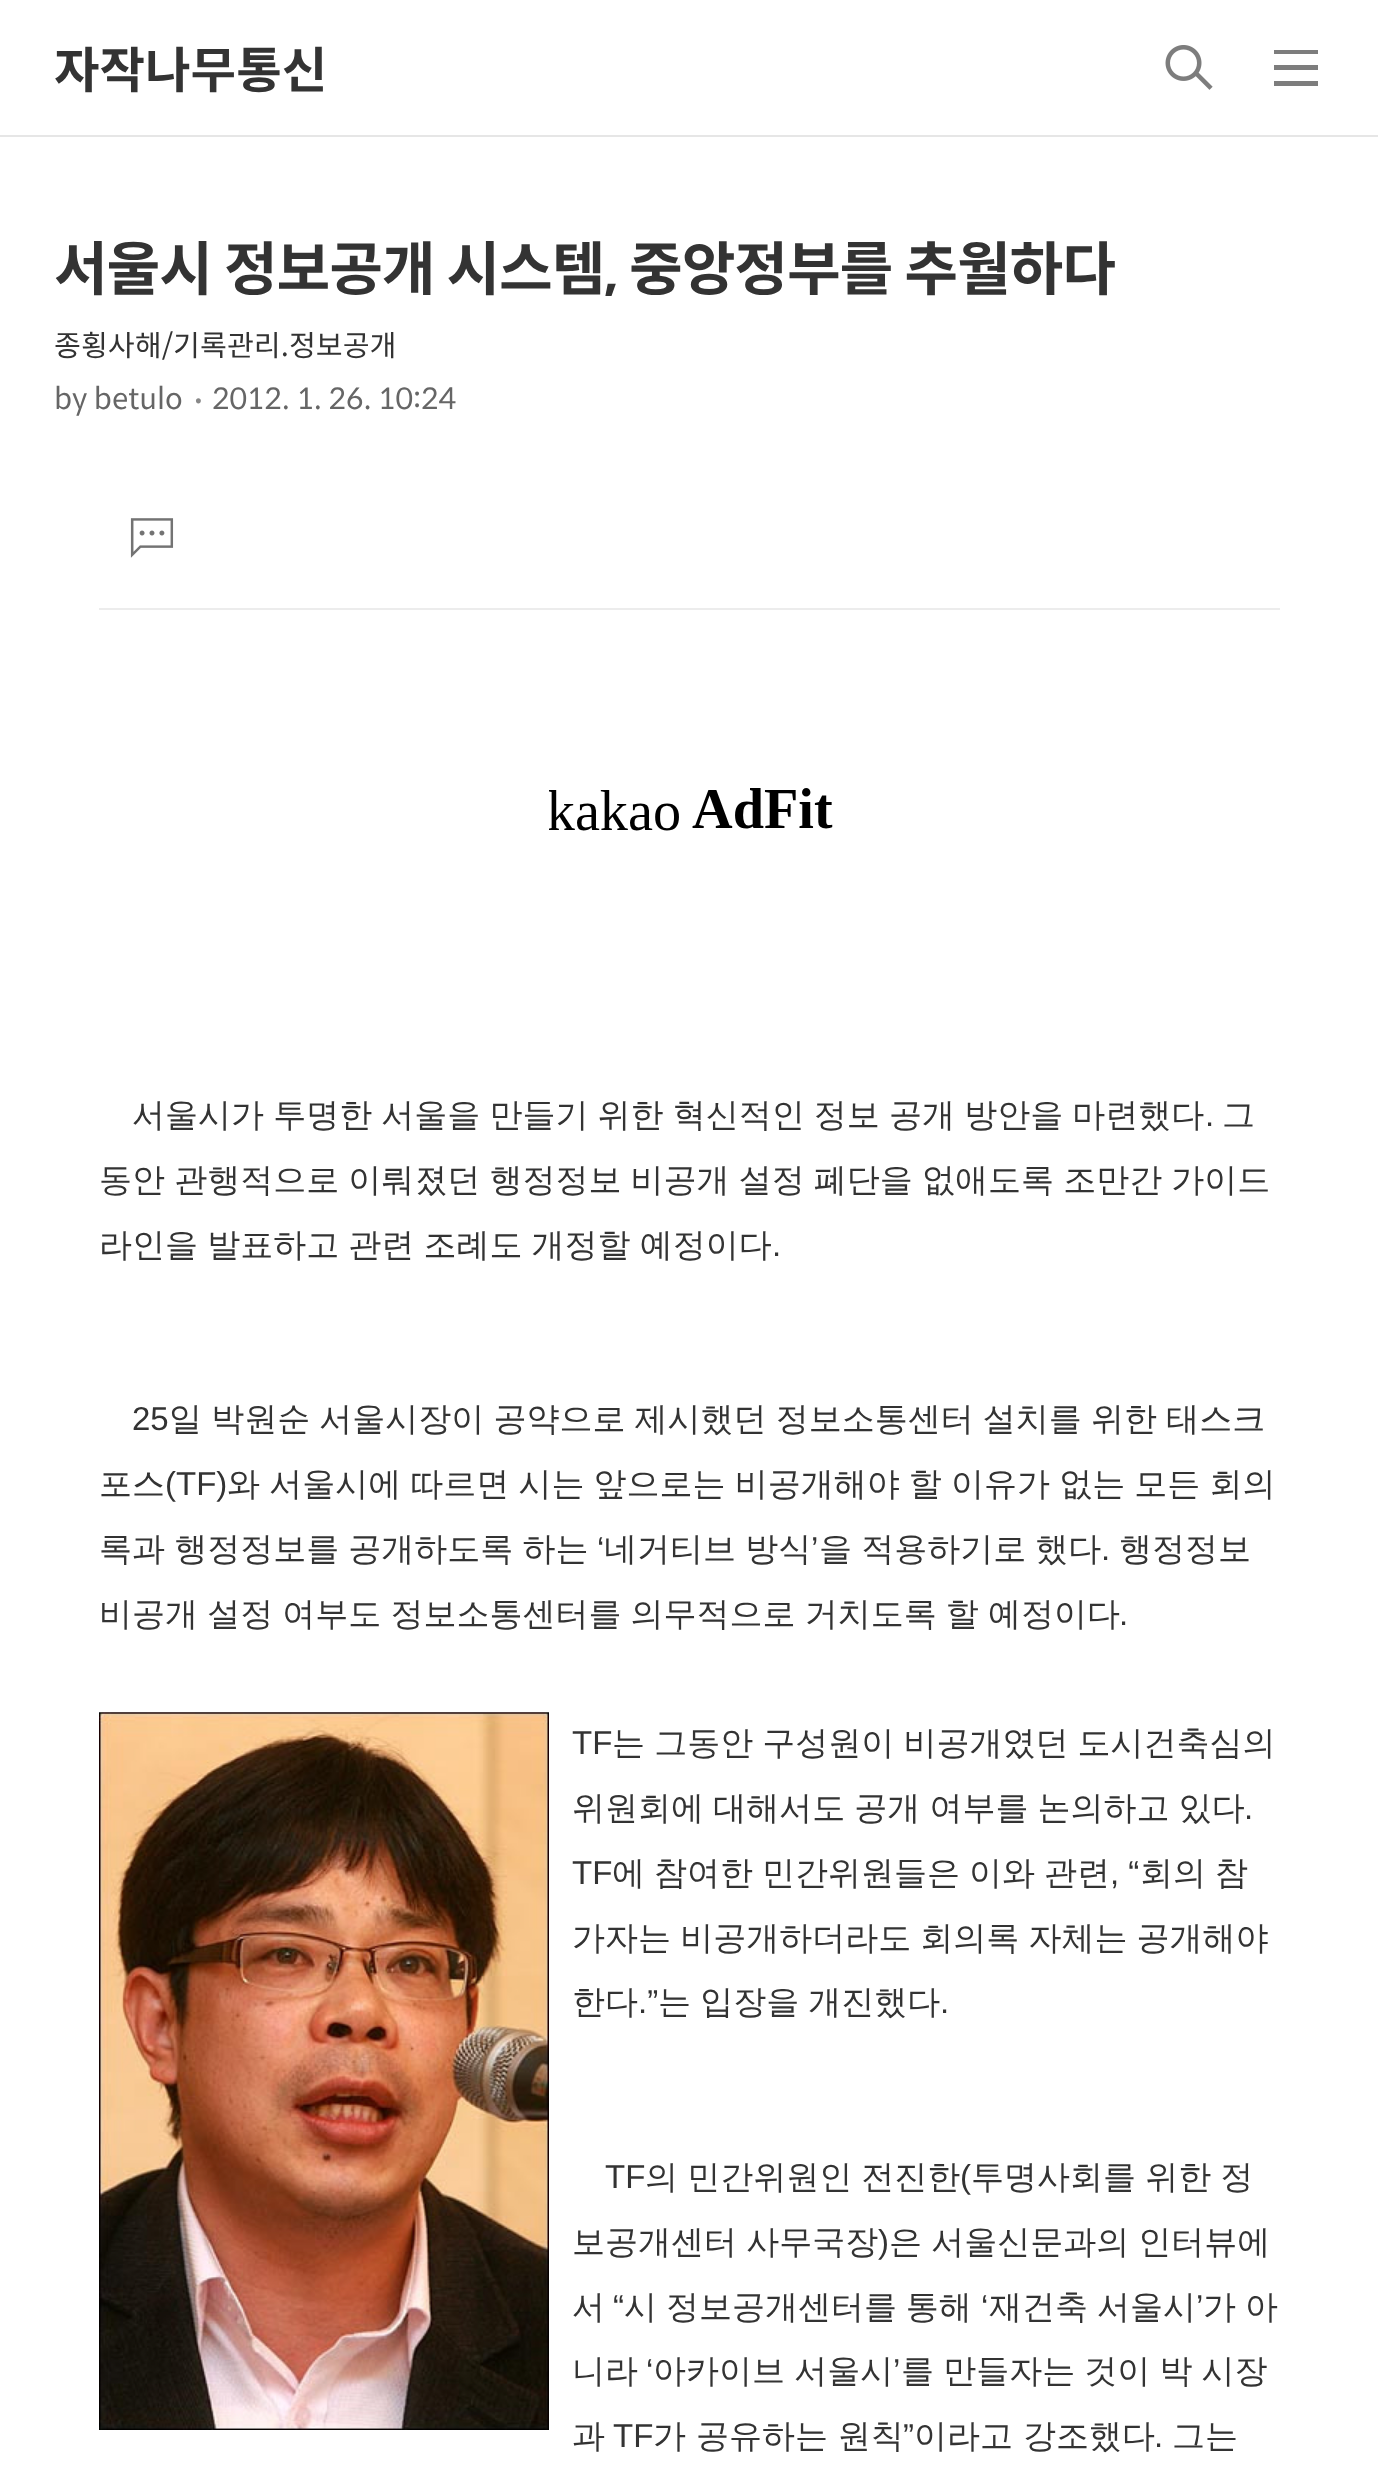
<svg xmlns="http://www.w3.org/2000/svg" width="1378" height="2470">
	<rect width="100%" height="100%" fill="#FFFFFF" />
	<rect x="0" y="135" width="1378" height="2" fill="#E6E6E6" />
	<text x="54" y="88" font-family="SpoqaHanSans" font-size="49.5" font-weight="700" fill="#333333">자작나무통신</text>
	<image x="1165" y="45" width="48" height="45" href="assets/img1.png" />
	<path d="M1274 50H1318V54H1274ZM1274 65H1318V70H1274ZM1274 81H1318V86H1274Z" fill="#7D7D7D" fill-rule="evenodd" />
	<text x="54" y="290" font-family="SpoqaHanSans" font-size="58.5" font-weight="700" letter-spacing="-1.2" fill="#333333">서울시 정보공개 시스템, 중앙정부를 추월하다</text>
	<text x="54" y="356" font-family="SpoqaHanSans" font-size="29.25" fill="#333333">종횡사해/기록관리.정보공개</text>
	<text x="54" y="409" font-family="SpoqaHanSans" font-size="29.25" fill="#666666">by betulo</text>
	<text x="194" y="403" font-family="SpoqaHanSans" font-size="27" font-weight="700" fill="#888888">.</text>
	<text x="212" y="409" font-family="SpoqaHanSans" font-size="29.25" fill="#666666">2012. 1. 26. 10:24</text>
	<rect x="99" y="608" width="1181" height="2" fill="#ECECEC" />
	<image x="130" y="518" width="44" height="40" href="assets/img2.png" />
	<image x="549" y="788" width="284" height="43" href="assets/img3.png" />
	<text x="132" y="1126" word-spacing="-0.75" font-family="WenQuanYi Zen Hei" font-size="33" font-weight="500" fill="#333333">서울시가 투명한 서울을 만들기 위한 혁신적인 정보 공개 방안을 마련했다</text>
	<text x="1205" y="1126" font-family="Liberation Sans" font-size="33" fill="#333333">.</text>
	<g font-family="WenQuanYi Zen Hei" font-size="33" font-weight="500" fill="#333333">
		<text x="1222" y="1126">그</text>
		<text x="99" y="1191" word-spacing="-0.75">동안 관행적으로 이뤄졌던 행정정보 비공개 설정 폐단을 없애도록 조만간 가이드</text>
		<text x="99" y="1256" word-spacing="-0.75">라인을 발표하고 관련 조례도 개정할 예정이다</text>
	</g>
	<g font-family="Liberation Sans" font-size="33" fill="#333333">
		<text x="772" y="1256">.</text>
		<text x="132" y="1430">25</text>
	</g>
	<g font-family="WenQuanYi Zen Hei" font-size="33" font-weight="500" fill="#333333">
		<text x="169" y="1430" word-spacing="-0.75">일 박원순 서울시장이 공약으로 제시했던 정보소통센터 설치를 위한 태스크</text>
		<text x="99" y="1495">포스</text>
	</g>
	<text x="165" y="1495" font-family="Liberation Sans" font-size="33" fill="#333333">(TF)</text>
	<g font-family="WenQuanYi Zen Hei" font-size="33" font-weight="500" fill="#333333">
		<text x="227" y="1495" word-spacing="-0.75">와 서울시에 따르면 시는 앞으로는 비공개해야 할 이유가 없는 모든 회의</text>
		<text x="99" y="1560" word-spacing="-0.75">록과 행정정보를 공개하도록 하는</text>
	</g>
	<text x="597" y="1560" font-family="Liberation Sans" font-size="33" fill="#333333">‘</text>
	<text x="604" y="1560" word-spacing="-0.75" font-family="WenQuanYi Zen Hei" font-size="33" font-weight="500" fill="#333333">네거티브 방식</text>
	<text x="811" y="1560" font-family="Liberation Sans" font-size="33" fill="#333333">’</text>
	<g font-family="WenQuanYi Zen Hei" font-size="33" font-weight="500" fill="#333333">
		<text x="819" y="1560" word-spacing="-0.75">을 적용하기로 했다</text>
		<text x="1119" y="1560">행정정보</text>
	</g>
	<text x="1101" y="1560" font-family="Liberation Sans" font-size="33" fill="#333333">.</text>
	<text x="99" y="1625" word-spacing="-0.75" font-family="WenQuanYi Zen Hei" font-size="33" font-weight="500" fill="#333333">비공개 설정 여부도 정보소통센터를 의무적으로 거치도록 할 예정이다</text>
	<text x="1119" y="1625" font-family="Liberation Sans" font-size="33" fill="#333333">.</text>
	<image x="99" y="1712" width="450" height="718" href="assets/img4.png" />
	<text x="572" y="1754" font-family="Liberation Sans" font-size="33" fill="#333333">TF</text>
	<g font-family="WenQuanYi Zen Hei" font-size="33" font-weight="500" fill="#333333">
		<text x="612" y="1754" word-spacing="-0.75">는 그동안 구성원이 비공개였던 도시건축심의</text>
		<text x="572" y="1819" word-spacing="-0.75">위원회에 대해서도 공개 여부를 논의하고 있다</text>
	</g>
	<g font-family="Liberation Sans" font-size="33" fill="#333333">
		<text x="1244" y="1819">.</text>
		<text x="572" y="1884">TF</text>
	</g>
	<g font-family="WenQuanYi Zen Hei" font-size="33" font-weight="500" fill="#333333">
		<text x="612" y="1884">에</text>
		<text x="654" y="1884">참여한</text>
		<text x="762" y="1884">민간위원들은</text>
		<text x="969" y="1884">이와</text>
		<text x="1044" y="1884">관련</text>
	</g>
	<text x="1110" y="1884" font-family="Liberation Sans" font-size="33" fill="#333333">, “</text>
	<g font-family="WenQuanYi Zen Hei" font-size="33" font-weight="500" fill="#333333">
		<text x="1140" y="1884">회의</text>
		<text x="1215" y="1884">참</text>
		<text x="572" y="1949" word-spacing="-0.75">가자는 비공개하더라도 회의록 자체는 공개해야</text>
		<text x="572" y="2013">한다</text>
	</g>
	<text x="638" y="2013" font-family="Liberation Sans" font-size="33" fill="#333333">.”</text>
	<text x="658" y="2013" word-spacing="-0.75" font-family="WenQuanYi Zen Hei" font-size="33" font-weight="500" fill="#333333">는 입장을 개진했다</text>
	<g font-family="Liberation Sans" font-size="33" fill="#333333">
		<text x="940" y="2013">.</text>
		<text x="605" y="2188">TF</text>
	</g>
	<text x="645" y="2188" word-spacing="-0.75" font-family="WenQuanYi Zen Hei" font-size="33" font-weight="500" fill="#333333">의 민간위원인 전진한</text>
	<text x="960" y="2188" font-family="Liberation Sans" font-size="33" fill="#333333">(</text>
	<g font-family="WenQuanYi Zen Hei" font-size="33" font-weight="500" fill="#333333">
		<text x="971" y="2188" word-spacing="-0.75">투명사회를 위한 정</text>
		<text x="572" y="2253" word-spacing="-0.75">보공개센터 사무국장</text>
	</g>
	<text x="878" y="2253" font-family="Liberation Sans" font-size="33" fill="#333333">)</text>
	<g font-family="WenQuanYi Zen Hei" font-size="33" font-weight="500" fill="#333333">
		<text x="889" y="2253" word-spacing="-0.75">은 서울신문과의 인터뷰에</text>
		<text x="572" y="2318">서</text>
	</g>
	<text x="613" y="2318" font-family="Liberation Sans" font-size="33" fill="#333333">“</text>
	<text x="624" y="2318" word-spacing="-1" font-family="WenQuanYi Zen Hei" font-size="33" font-weight="500" fill="#333333">시 정보공개센터를 통해</text>
	<text x="981" y="2318" font-family="Liberation Sans" font-size="33" fill="#333333">‘</text>
	<text x="989" y="2318" word-spacing="-1" font-family="WenQuanYi Zen Hei" font-size="33" font-weight="500" fill="#333333">재건축 서울시</text>
	<text x="1196" y="2318" font-family="Liberation Sans" font-size="33" fill="#333333">’</text>
	<g font-family="WenQuanYi Zen Hei" font-size="33" font-weight="500" fill="#333333">
		<text x="1203" y="2318" word-spacing="-1">가 아</text>
		<text x="572" y="2382">니라</text>
	</g>
	<text x="646" y="2382" font-family="Liberation Sans" font-size="33" fill="#333333">‘</text>
	<text x="653" y="2382" word-spacing="-0.75" font-family="WenQuanYi Zen Hei" font-size="33" font-weight="500" fill="#333333">아카이브 서울시</text>
	<text x="893" y="2382" font-family="Liberation Sans" font-size="33" fill="#333333">’</text>
	<g font-family="WenQuanYi Zen Hei" font-size="33" font-weight="500" fill="#333333">
		<text x="901" y="2382" word-spacing="-0.75">를 만들자는 것이 박 시장</text>
		<text x="572" y="2447">과</text>
	</g>
	<text x="613" y="2447" font-family="Liberation Sans" font-size="33" fill="#333333">TF</text>
	<text x="653" y="2447" font-family="WenQuanYi Zen Hei" font-size="33" font-weight="500" fill="#333333">가 공유하는 원칙</text>
	<text x="903" y="2447" font-family="Liberation Sans" font-size="33" fill="#333333">”</text>
	<g font-family="WenQuanYi Zen Hei" font-size="33" font-weight="500" fill="#333333">
		<text x="914" y="2447">이라고 강조했다</text>
		<text x="1172" y="2447">그는</text>
	</g>
	<text x="1154" y="2447" font-family="Liberation Sans" font-size="33" fill="#333333">.</text>
</svg>
